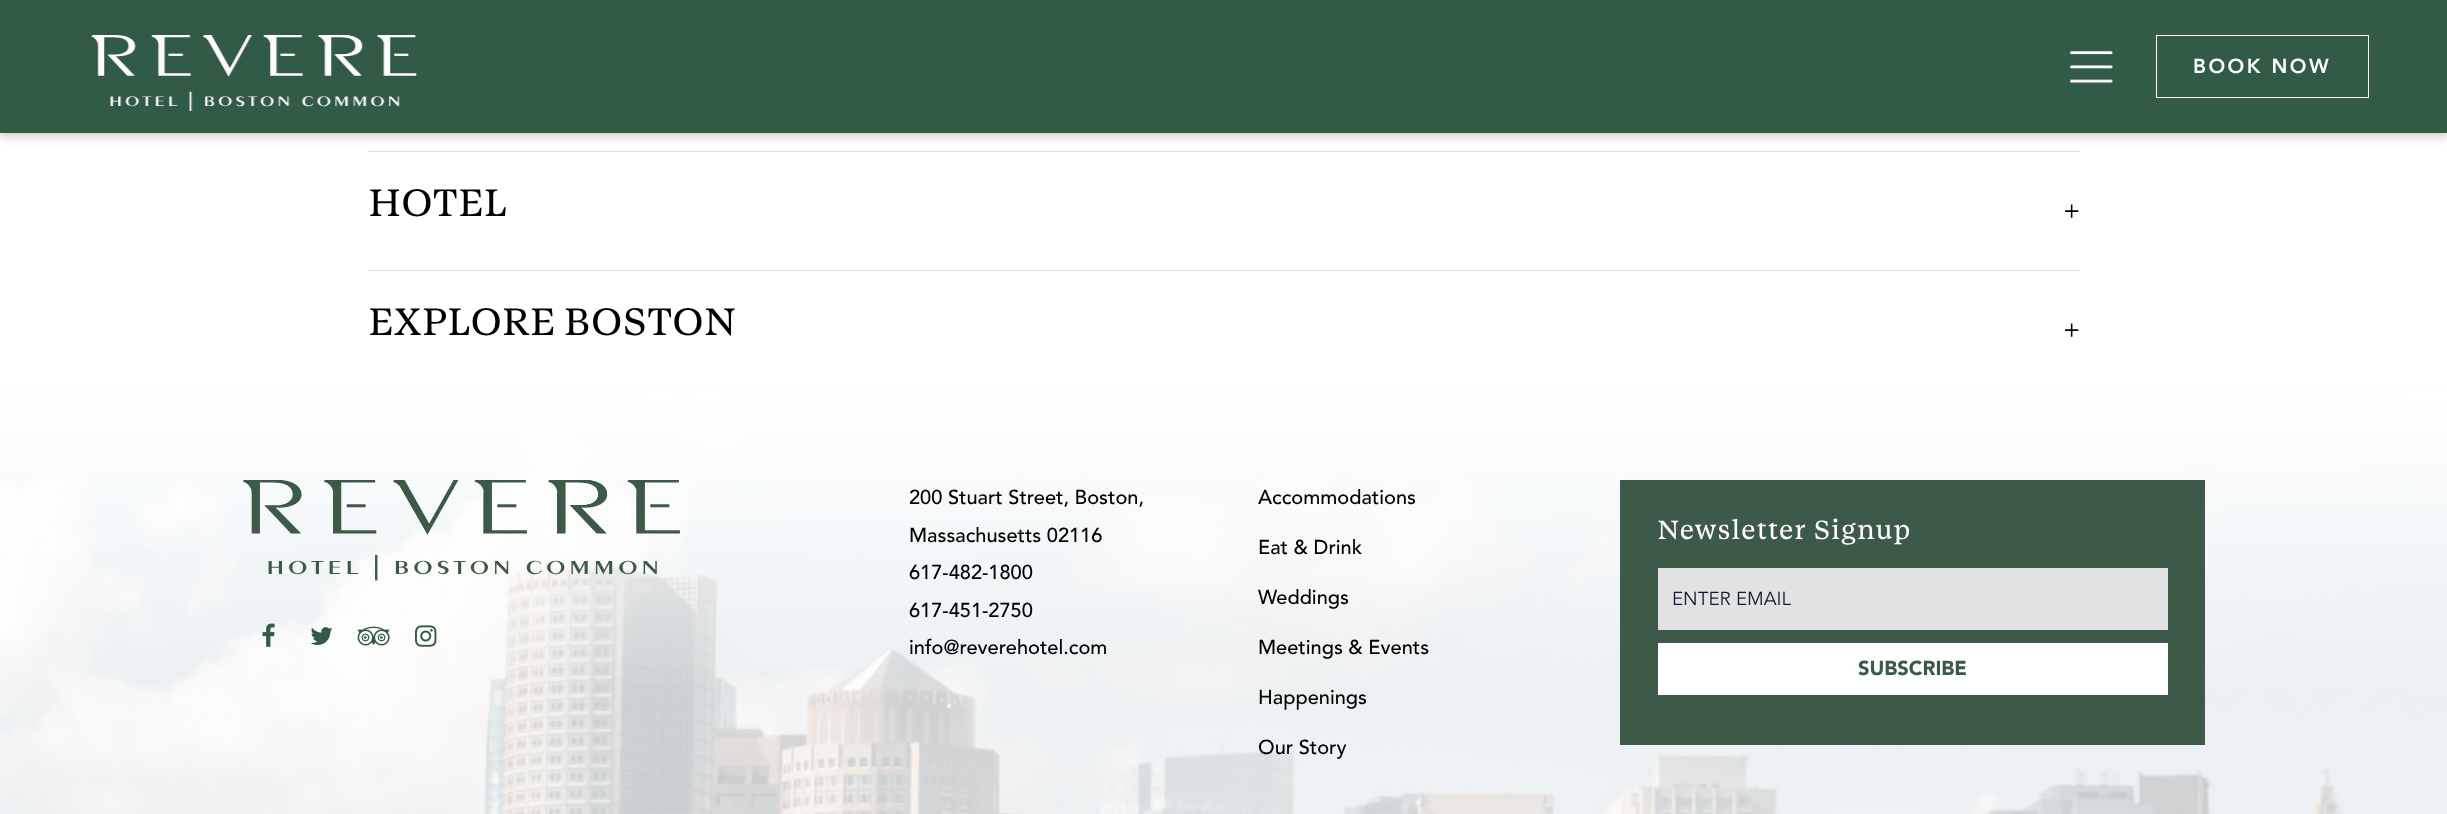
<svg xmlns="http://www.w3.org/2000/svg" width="2447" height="814">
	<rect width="100%" height="100%" fill="#FFFFFF" />
	<rect x="368" y="151" width="1712" height="1" fill="#E0E0E0" />
	<rect x="-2" y="-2" width="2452" height="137" fill="#000000" fill-opacity="0.25" filter="blur(6px)" />
	<rect x="0" y="0" width="2447" height="133" fill="#325B45" />
	<image x="91" y="35" width="326" height="76" href="assets/img1.png" />
	<image x="2070" y="51" width="43" height="33" href="assets/img2.png" />
	<rect x="2156.5" y="35.5" width="212" height="62" fill="none" stroke="#FFFFFF" />
	<text x="2193" y="73" font-family="'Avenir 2'" font-size="20" font-weight="900" letter-spacing="2.5" fill="#FFFFFF">BOOK NOW</text>
	<text x="368" y="216" font-family="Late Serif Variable" font-size="40" fill="#000000">HOTEL</text>
	<text x="2063" y="219" font-family="Avenir" font-size="26" fill="#000000">+</text>
	<rect x="368" y="270" width="1712" height="1" fill="#E0E0E0" />
	<text x="368" y="335" font-family="Late Serif Variable" font-size="40" fill="#000000">EXPLORE BOSTON</text>
	<text x="2063" y="338" font-family="Avenir" font-size="26" fill="#000000">+</text>
	<image x="0" y="389" width="2447" height="425" href="assets/img3.png" />
	<image x="243" y="480" width="437" height="101" href="assets/img4.png" />
	<image x="262" y="623" width="13" height="24" href="assets/img5.png" />
	<image x="310" y="627" width="23" height="18" href="assets/img6.png" />
	<image x="357" y="626" width="33" height="20" href="assets/img7.png" />
	<image x="415" y="625" width="22" height="22" href="assets/img8.png" />
	<g font-family="Avenir" font-size="20" font-weight="500" fill="#000000">
		<text x="909" y="504">200 Stuart Street, Boston,</text>
		<text x="909" y="542">Massachusetts 02116</text>
		<text x="909" y="579">617-482-1800</text>
		<text x="909" y="617">617-451-2750</text>
		<text x="909" y="654">info@reverehotel.com</text>
		<text x="1258" y="504">Accommodations</text>
		<text x="1258" y="554">Eat &amp; Drink</text>
		<text x="1258" y="604">Weddings</text>
		<text x="1258" y="654">Meetings &amp; Events</text>
		<text x="1258" y="704">Happenings</text>
		<text x="1258" y="754">Our Story</text>
	</g>
	<rect x="1620" y="480" width="585" height="265" fill="#3C5A47" />
	<text x="1657" y="539" font-family="Late Serif Variable" font-size="27.5" letter-spacing="1.25" fill="#FFFFFF">Newsletter Signup</text>
	<rect x="1658" y="568" width="510" height="62" fill="#E3E2E2" />
	<text x="1672" y="605" font-family="Avenir" font-size="18.75" fill="#0F1B34">ENTER EMAIL</text>
	<rect x="1658" y="643" width="510" height="52" fill="#FFFFFF" />
	<text x="1858" y="675" font-family="Avenir" font-size="20" font-weight="900" fill="#3C5A47">SUBSCRIBE</text>
</svg>
